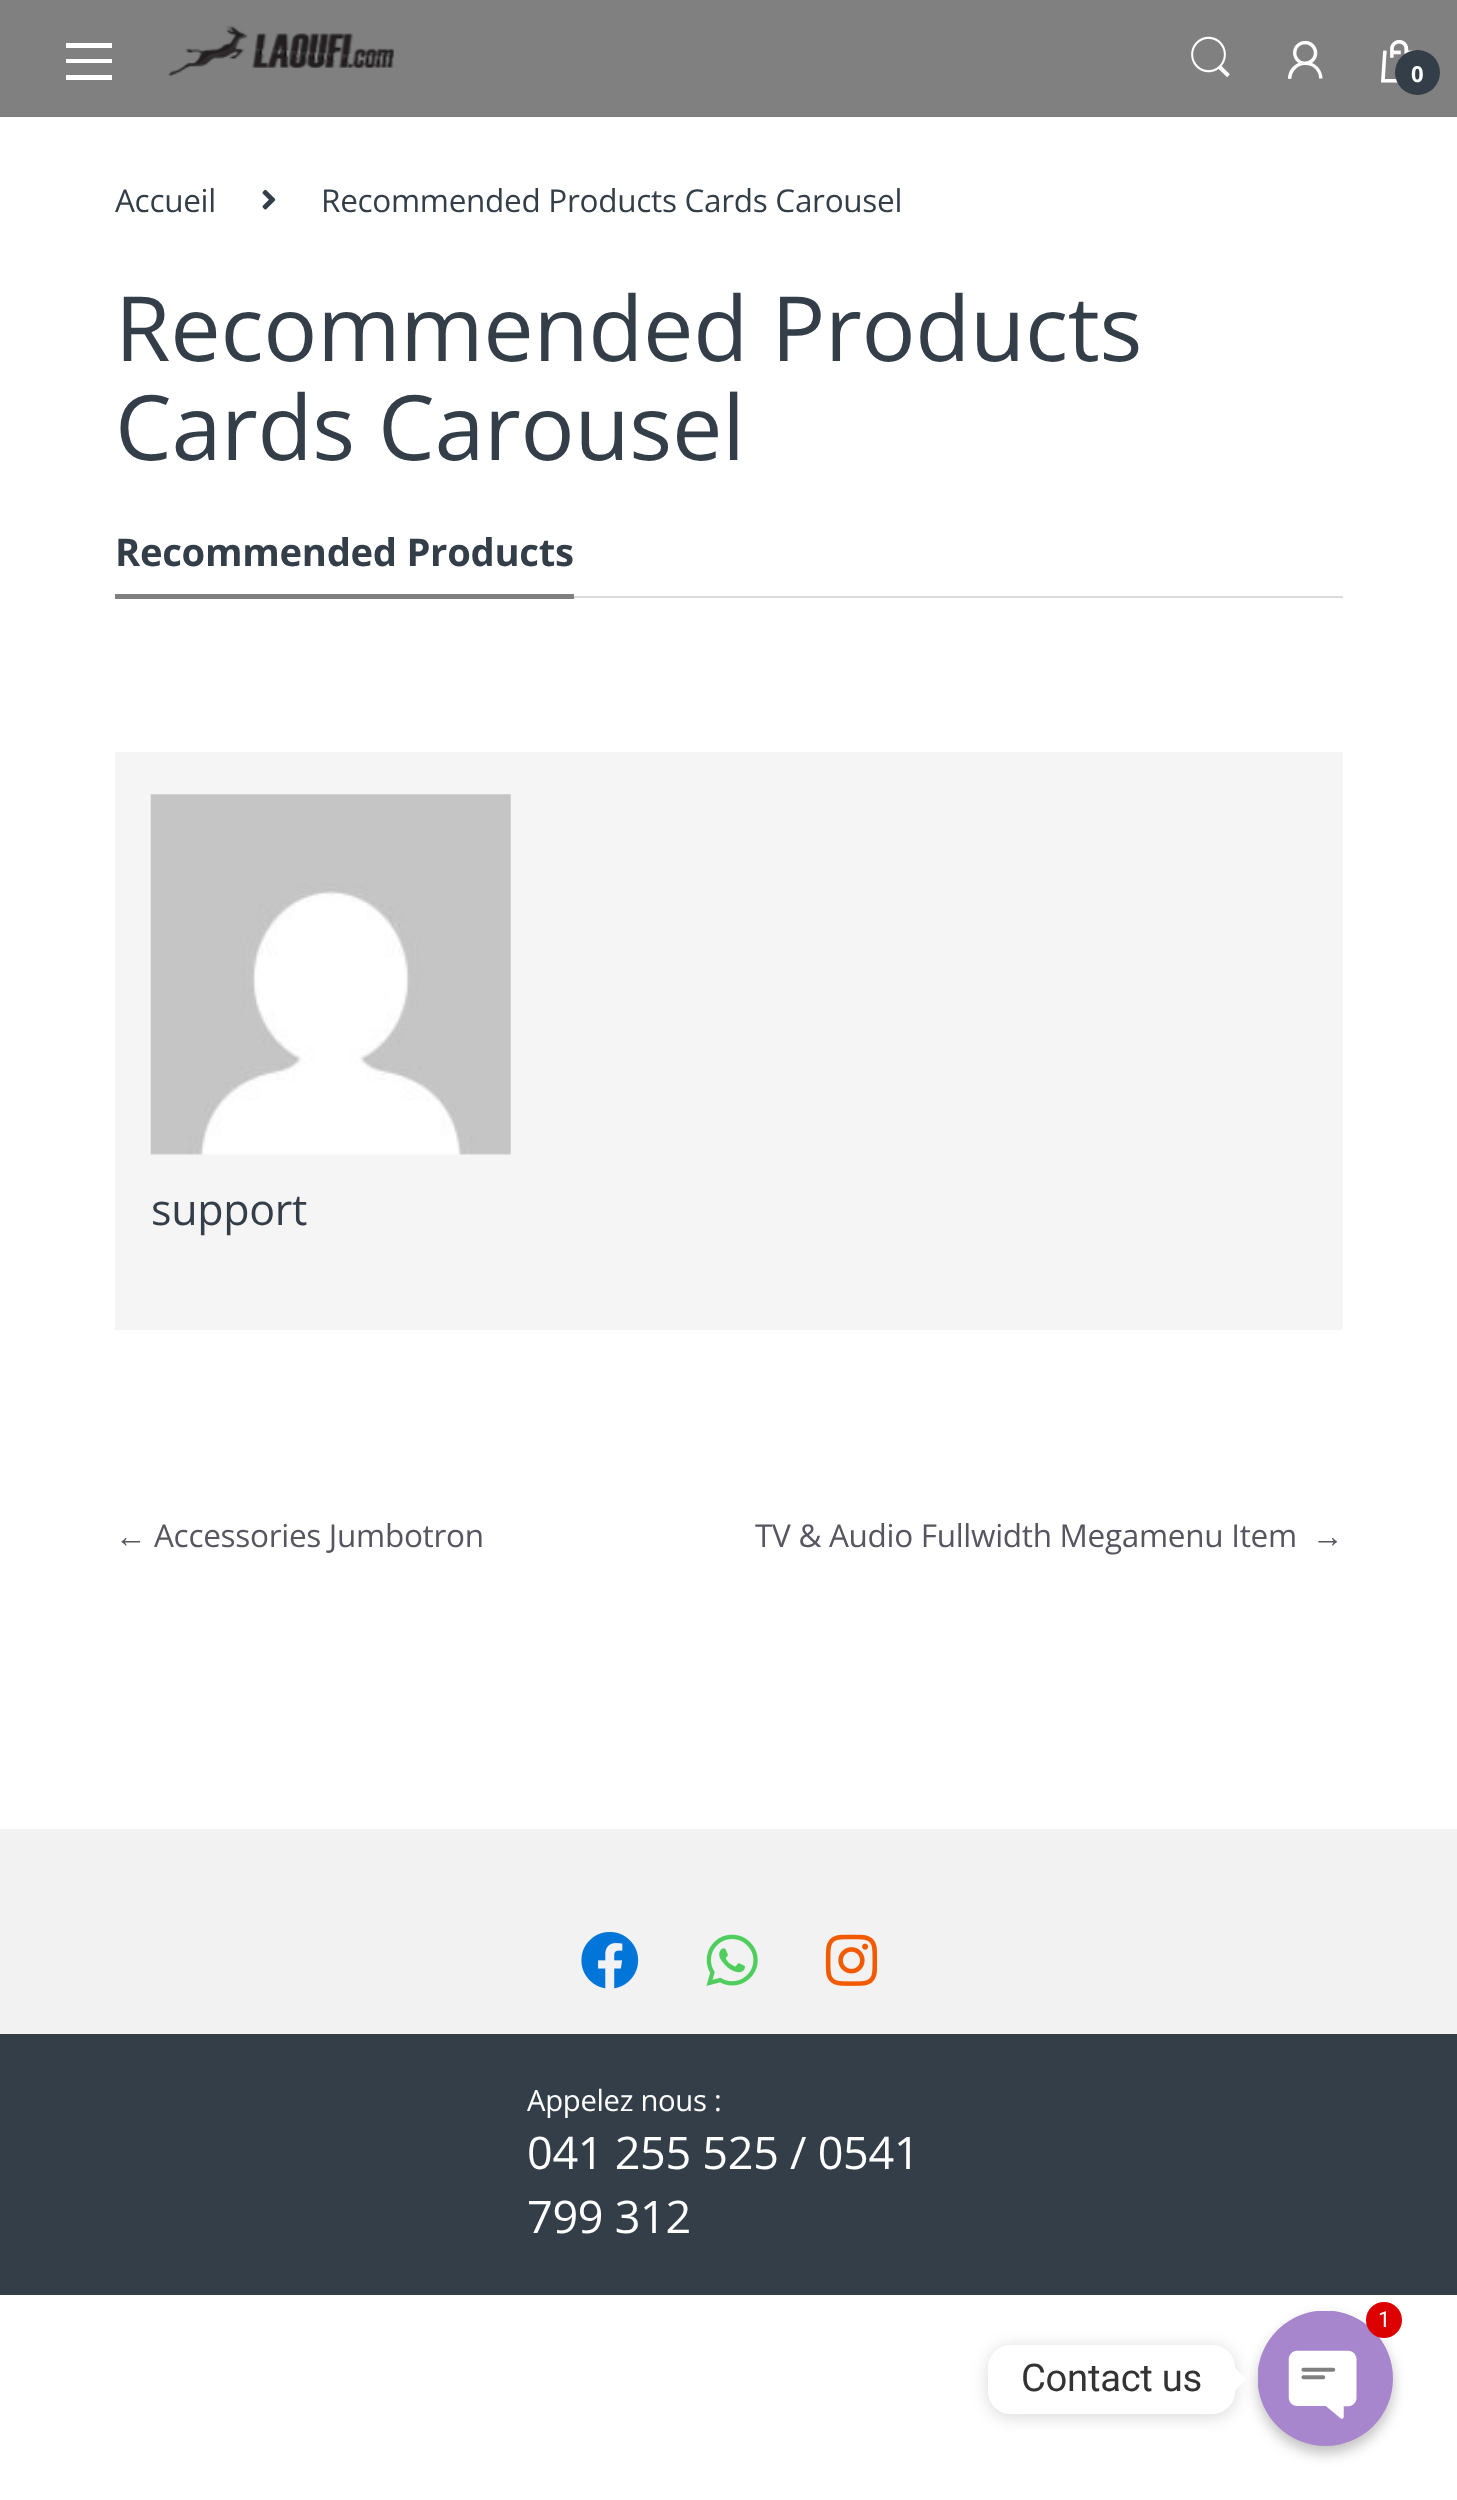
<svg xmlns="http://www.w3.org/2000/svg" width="1457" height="2500">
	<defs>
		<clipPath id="clip1"><path d="M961 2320H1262V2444H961ZM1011 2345H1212C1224.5 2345 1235 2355.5 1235 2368V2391C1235 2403.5 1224.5 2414 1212 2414H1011C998.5 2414 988 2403.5 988 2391V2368C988 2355.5 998.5 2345 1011 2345Z" clip-rule="evenodd" /></clipPath>
	</defs>
	<rect width="100%" height="100%" fill="#FFFFFF" />
	<rect x="0" y="0" width="1457" height="117" fill="#808080" />
	<path d="M66 80V75H112V80ZM66 59H112V63H66ZM66 43H112V48H66Z" fill="#FFFFFF" />
	<image x="168" y="25" width="226" height="51" href="assets/img1.png" />
	<image x="1191" y="36" width="39" height="42" href="assets/img2.png" />
	<image x="1287" y="40" width="36" height="39" href="assets/img3.png" />
	<image x="1381" y="40" width="35" height="43" href="assets/img4.png" />
	<circle cx="1417.5" cy="72.5" r="22.5" fill="#333E48" />
	<text x="1411" y="82" font-family="Open Sans" font-size="22" font-weight="700" letter-spacing="-0.3" fill="#FFFFFF">0</text>
	<text x="115" y="212" font-family="Open Sans" font-size="31.5" letter-spacing="-0.3" fill="#333E48">Accueil</text>
	<image x="262" y="189" width="14" height="21" href="assets/img5.png" />
	<text x="321" y="212" font-family="Open Sans" font-size="31.5" letter-spacing="-0.3" fill="#333E48">Recommended Products Cards Carousel</text>
	<g font-family="Open Sans" font-size="90" letter-spacing="-0.3" fill="#333E48">
		<text x="115" y="361">Recommended Products</text>
		<text x="115" y="460">Cards Carousel</text>
	</g>
	<rect x="574" y="596" width="769" height="2" fill="#DADADA" />
	<text x="115" y="566" font-family="Open Sans" font-size="38.25" font-weight="700" letter-spacing="-0.3" fill="#333E48">Recommended Products</text>
	<rect x="115" y="594" width="459" height="5" fill="#808080" />
	<rect x="115" y="752" width="1228" height="578" fill="#F5F5F5" />
	<image x="150" y="794" width="361" height="361" href="assets/img6.png" />
	<text x="151" y="1225" font-family="Open Sans" font-size="43" letter-spacing="-0.3" fill="#333E48">support</text>
	<text x="115" y="1547" font-family="Liberation Sans" font-size="31.5" letter-spacing="-0.3" fill="#575560">←</text>
	<g font-family="Open Sans" font-size="31.5" letter-spacing="-0.3" fill="#575560">
		<text x="154" y="1547">Accessories Jumbotron</text>
		<text x="755" y="1547">TV &amp; Audio Fullwidth Megamenu Item</text>
	</g>
	<text x="1312" y="1547" font-family="Liberation Sans" font-size="31.5" letter-spacing="-0.3" fill="#575560">→</text>
	<rect x="0" y="1829" width="1457" height="205" fill="#F2F2F2" />
	<image x="581" y="1932" width="58" height="57" href="assets/img7.png" />
	<image x="706" y="1934" width="52" height="52" href="assets/img8.png" />
	<image x="825" y="1934" width="53" height="52" href="assets/img9.png" />
	<rect x="0" y="2034" width="1457" height="261" fill="#333E48" />
	<text x="527" y="2111" font-family="Open Sans" font-size="29.25" letter-spacing="-0.3" fill="#FFFFFF">Appelez nous :</text>
	<g font-family="Open Sans" font-size="45" letter-spacing="-0.3" fill="#FFFFFF">
		<text x="527" y="2169">041 255 525 / 0541</text>
		<text x="527" y="2233">799 312</text>
	</g>
	<g clip-path="url(#clip1)">
		<rect x="988" y="2347" width="247" height="70" rx="23" fill="#000000" fill-opacity="0.15" filter="blur(8.5px)" />
	</g>
	<path d="M1235 2390.5V2368L1246.5 2379.5Z" fill="#FFFFFF" />
	<rect x="1258" y="2318" width="135" height="135" rx="67.5" fill="#000000" fill-opacity="0.25" filter="blur(7px)" />
	<circle cx="1325.5" cy="2378.5" r="67.5" fill="#A886CD" />
	<image x="1258" y="2311" width="133" height="131" href="assets/img10.png" />
	<circle cx="1384" cy="2320" r="18" fill="#DD0000" />
	<text x="1378" y="2327" font-family="Roboto" font-size="22" letter-spacing="-0.3" fill="#FFFFFF">1</text>
	<rect x="988" y="2345" width="247" height="69" rx="23" fill="#FFFFFF" />
	<text x="1021" y="2391" font-family="Roboto" font-size="38.25" letter-spacing="-0.3" fill="#333333">Contact us</text>
</svg>
